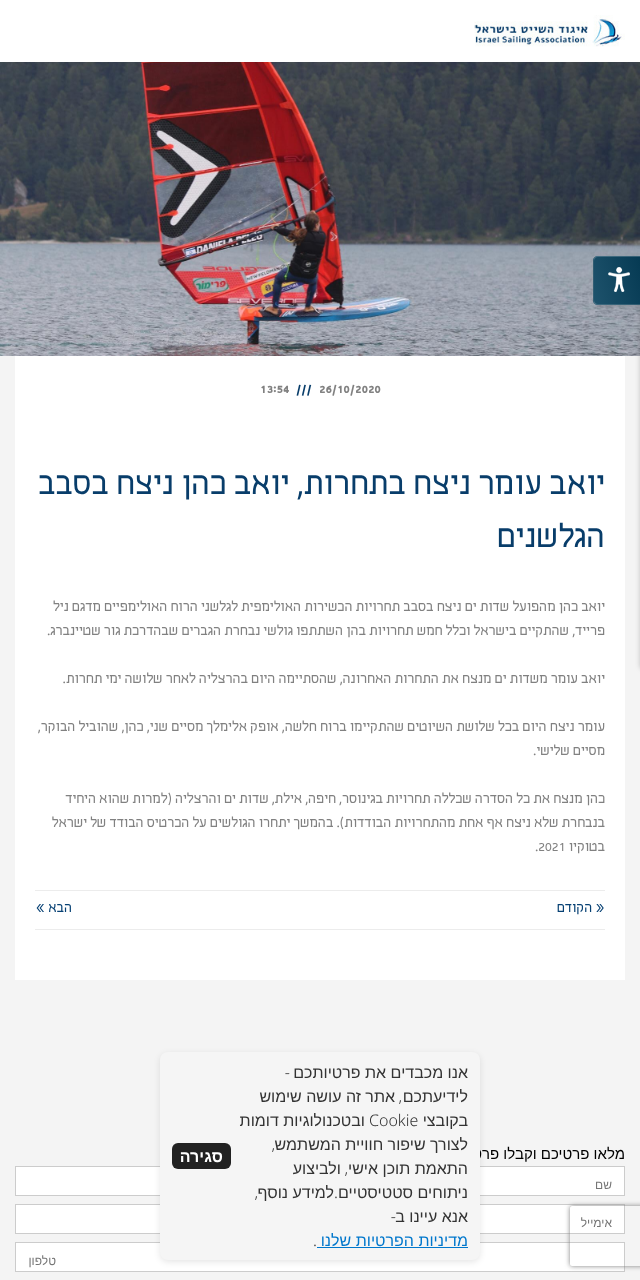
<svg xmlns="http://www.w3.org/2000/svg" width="640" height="1280">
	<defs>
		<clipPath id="clip1"><path d="M598 256H640V305H598C595 305 593 303 593 300V261C593 258 595 256 598 256Z" /></clipPath>
		<linearGradient id="g1" gradientUnits="userSpaceOnUse" x1="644" y1="226" x2="590" y2="241"><stop offset="0.01" stop-color="#000000" stop-opacity="0.35" /><stop offset="0.98" stop-color="#434343" stop-opacity="0.35" /></linearGradient>
		<linearGradient id="g2" gradientUnits="userSpaceOnUse" x1="598" y1="273" x2="544" y2="288"><stop offset="0.01" stop-color="#000000" stop-opacity="0.35" /><stop offset="0.98" stop-color="#434343" stop-opacity="0.35" /></linearGradient>
		<linearGradient id="g3" gradientUnits="userSpaceOnUse" x1="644" y1="273" x2="590" y2="288"><stop offset="0.01" stop-color="#000000" stop-opacity="0.35" /><stop offset="0.98" stop-color="#434343" stop-opacity="0.35" /></linearGradient>
		<linearGradient id="g4" gradientUnits="userSpaceOnUse" x1="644" y1="320" x2="590" y2="335"><stop offset="0.01" stop-color="#000000" stop-opacity="0.35" /><stop offset="0.98" stop-color="#434343" stop-opacity="0.35" /></linearGradient>
		<clipPath id="clip2"><path d="M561 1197H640V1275H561ZM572 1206H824C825 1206 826 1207 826 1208V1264C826 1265 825 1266 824 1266H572C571 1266 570 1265 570 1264V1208C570 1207 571 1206 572 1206Z" clip-rule="evenodd" /></clipPath>
	</defs>
	<rect width="100%" height="100%" fill="#F4F4F4" />
	<image x="0" y="62" width="640" height="294" href="assets/img3.png" />
	<rect x="596" y="258" width="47" height="49" rx="5" fill="#000000" fill-opacity="0.14" filter="blur(2.5px)" />
	<rect x="640" y="261" width="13" height="409" rx="5" fill="#000101" fill-opacity="0.2" filter="blur(2.5px)" />
	<path d="M598 256H640V305H598C595 305 593 303 593 300V261C593 258 595 256 598 256Z" fill="#095A81" />
	<g clip-path="url(#clip1)">
		<rect x="594" y="256" width="46" height="1" fill="url(#g1)" />
		<rect x="593" y="257" width="1" height="47" fill="url(#g2)" />
	</g>
	<rect x="594" y="257" width="46" height="47" fill="url(#g3)" />
	<g clip-path="url(#clip1)">
		<rect x="594" y="304" width="46" height="1" fill="url(#g4)" />
	</g>
	<path d="M598 256H640V305H598C595 305 593 303 593 300V261C593 258 595 256 598 256ZM598 257H640V304H598C596 304 594 302 594 300V261C594 259 596 257 598 257Z" fill="#FFFFFF" fill-opacity="0.17" fill-rule="evenodd" />
	<image x="608" y="267" width="22" height="25" href="assets/img1.png" />
	<rect x="0" y="0" width="640" height="62" fill="#FFFFFF" />
	<image x="474" y="15" width="151" height="32" href="assets/img2.png" />
	<rect x="15" y="356" width="610" height="624" fill="#FFFFFF" />
	<text x="319" y="393" font-family="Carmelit" font-size="12" font-weight="700" fill="#818181">26/10/2020</text>
	<text x="296" y="393" font-family="Carmelit" font-size="12" font-weight="700" fill="#083D6A">///</text>
	<text x="260" y="393" font-family="Carmelit" font-size="12" font-weight="700" fill="#818181">13:54</text>
	<g font-family="Carmelit" font-size="35" direction="rtl" fill="#083D6A">
		<text x="605" y="494">יואב עומר ניצח בתחרות, יואב כהן ניצח בסבב</text>
		<text x="605" y="547">הגלשנים</text>
	</g>
	<g font-family="Carmelit" font-size="15" direction="rtl" fill="#818181">
		<text x="605" y="611">יואב כהן מהפועל שדות ים ניצח בסבב תחרויות הכשירות האולימפית לגלשני הרוח האולימפיים מדגם ניל</text>
		<text x="605" y="635">פרייד, שהתקיים בישראל וכלל חמש תחרויות בהן השתתפו גולשי נבחרת הגברים שבהדרכת גור שטיינברג.</text>
		<text x="605" y="683">יואב עומר משדות ים מנצח את התחרות האחרונה, שהסתיימה היום בהרצליה לאחר שלושה ימי תחרות.</text>
		<text x="605" y="731">עומר ניצח היום בכל שלושת השיוטים שהתקיימו ברוח חלשה, אופק אלימלך מסיים שני, כהן, שהוביל הבוקר,</text>
		<text x="605" y="755">מסיים שלישי.</text>
		<text x="605" y="803">כהן מנצח את כל הסדרה שכללה תחרויות בגינוסר, חיפה, אילת, שדות ים והרצליה (למרות שהוא היחיד</text>
		<text x="605" y="827">בנבחרת שלא ניצח אף אחת מהתחרויות הבודדות). בהמשך יתחרו הגולשים על הכרטיס הבודד של ישראל</text>
		<text x="605" y="851">בטוקיו</text>
	</g>
	<text x="535" y="851" font-family="Carmelit" font-size="15" fill="#818181">.2021</text>
	<rect x="35" y="890" width="570" height="1" fill="#ECECEC" />
	<rect x="35" y="929" width="570" height="1" fill="#ECECEC" />
	<g font-family="Carmelit" font-size="15" direction="rtl" fill="#074174">
		<text x="605" y="912">« הקודם</text>
		<text x="72" y="912">הבא »</text>
	</g>
	<text x="625" y="1159" font-family="Liberation Sans" font-size="15" direction="rtl" fill="#000000">מלאו פרטיכם וקבלו פרטים</text>
	<rect x="15.5" y="1166.5" width="609" height="29" fill="#FFFFFF" stroke="#CCCCCC" />
	<text x="612" y="1189" font-family="Liberation Sans" font-size="12" direction="rtl" fill="#757575">שם</text>
	<rect x="15.5" y="1204.5" width="609" height="29" fill="#FFFFFF" stroke="#CCCCCC" />
	<text x="612" y="1227" font-family="Liberation Sans" font-size="12" direction="rtl" fill="#757575">אימייל</text>
	<rect x="15.5" y="1242.5" width="609" height="29" fill="#FFFFFF" stroke="#CCCCCC" />
	<text x="56" y="1265" font-family="Liberation Sans" font-size="12" direction="rtl" fill="#757575">טלפון</text>
	<g clip-path="url(#clip2)">
		<rect x="570" y="1206" width="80" height="60" rx="2" fill="#808080" filter="blur(2.5px)" />
	</g>
	<rect x="160" y="1054" width="320" height="208" rx="8" fill="#000000" fill-opacity="0.1" filter="blur(3px)" />
	<rect x="160" y="1052" width="320" height="208" rx="8" fill="#F5F5F5" />
	<text x="468" y="1078" font-family="Liberation Sans" font-size="16" direction="rtl" fill="#333333">אנו מכבדים את פרטיותכם</text>
	<text x="290" y="1078" font-family="Noto Sans" font-size="16" font-weight="300" direction="rtl" fill="#333333">-</text>
	<text x="468" y="1102" font-family="Liberation Sans" font-size="16" direction="rtl" fill="#333333">לידיעתכם</text>
	<text x="402" y="1102" font-family="Noto Sans" font-size="16" font-weight="300" direction="rtl" fill="#333333">,</text>
	<g font-family="Liberation Sans" font-size="16" direction="rtl" fill="#333333">
		<text x="395" y="1102">אתר זה עושה שימוש</text>
		<text x="468" y="1126">בקובצי</text>
	</g>
	<text x="369" y="1126" font-family="Noto Sans" font-size="16" font-weight="300" fill="#333333">Cookie</text>
	<g font-family="Liberation Sans" font-size="16" direction="rtl" fill="#333333">
		<text x="365" y="1126">ובטכנולוגיות דומות</text>
		<text x="468" y="1150">לצורך שיפור חוויית המשתמש</text>
	</g>
	<text x="275" y="1150" font-family="Noto Sans" font-size="16" font-weight="300" direction="rtl" fill="#333333">,</text>
	<text x="468" y="1174" font-family="Liberation Sans" font-size="16" direction="rtl" fill="#333333">התאמת תוכן אישי</text>
	<text x="348" y="1174" font-family="Noto Sans" font-size="16" font-weight="300" direction="rtl" fill="#333333">,</text>
	<g font-family="Liberation Sans" font-size="16" direction="rtl" fill="#333333">
		<text x="341" y="1174">ולביצוע</text>
		<text x="468" y="1198">ניתוחים סטטיסטיים</text>
	</g>
	<text x="338" y="1198" font-family="Noto Sans" font-size="16" font-weight="300" direction="rtl" fill="#333333">.</text>
	<text x="334" y="1198" font-family="Liberation Sans" font-size="16" direction="rtl" fill="#333333">למידע נוסף</text>
	<text x="258" y="1198" font-family="Noto Sans" font-size="16" font-weight="300" direction="rtl" fill="#333333">,</text>
	<text x="468" y="1222" font-family="Liberation Sans" font-size="16" direction="rtl" fill="#333333">אנא עיינו ב</text>
	<text x="396" y="1222" font-family="Noto Sans" font-size="16" font-weight="300" direction="rtl" fill="#333333">-</text>
	<text x="468" y="1246" font-family="Liberation Sans" font-size="16" direction="rtl" fill="#0077CC">מדיניות הפרטיות שלנו</text>
	<rect x="317" y="1247" width="151" height="1" fill="#0077CC" />
	<text x="313" y="1246" font-family="Noto Sans" font-size="16" font-weight="300" fill="#333333">.</text>
	<rect x="172" y="1143" width="59" height="26" rx="6" fill="#222222" />
	<text x="223" y="1162" font-family="Liberation Sans" font-size="16" font-weight="700" direction="rtl" fill="#FFFFFF">סגירה</text>
</svg>
